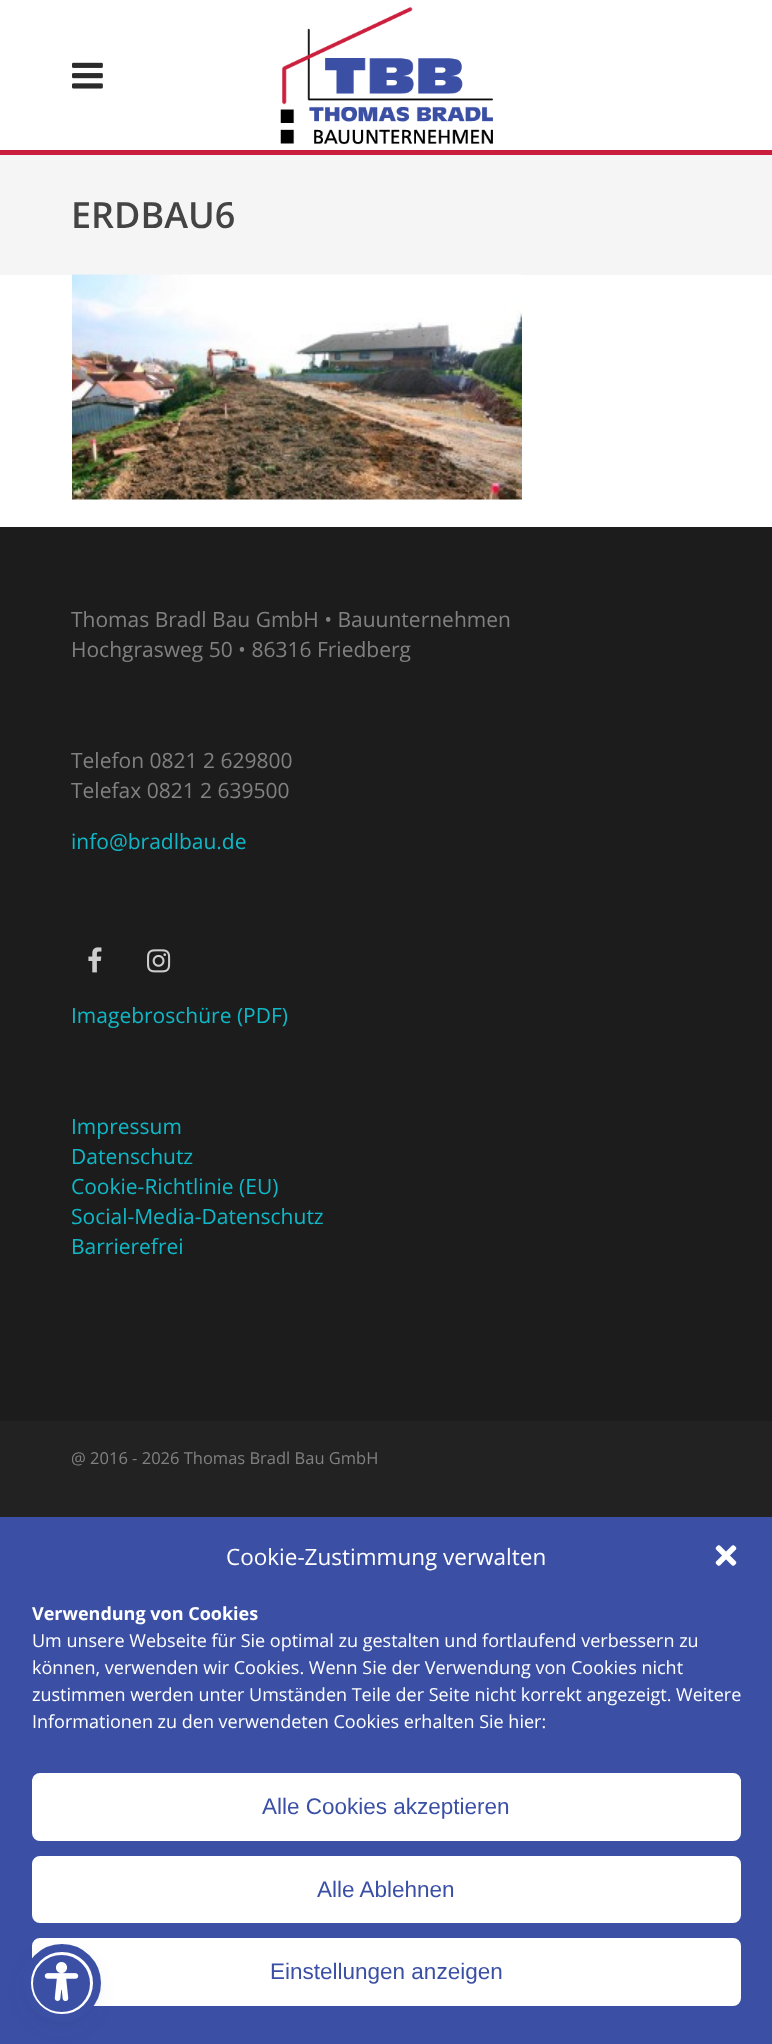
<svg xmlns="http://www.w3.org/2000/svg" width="772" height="2044">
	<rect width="100%" height="100%" fill="#FFFFFF" />
	<rect x="0" y="150" width="772" height="5" fill="#CB1E3C" />
	<image x="72" y="62" width="31" height="27" href="assets/img1.png" />
	<image x="280" y="7" width="213" height="138" href="assets/img2.png" />
	<rect x="0" y="155" width="772" height="120" fill="#F5F5F5" />
	<text x="71" y="228" font-family="Open Sans" font-size="36" font-weight="600" fill="#444444">ERDBAU6</text>
	<image x="72" y="274" width="450" height="226" href="assets/img3.png" />
	<rect x="0" y="527" width="772" height="894" fill="#1C1C1C" />
	<g font-family="Open Sans" font-size="21" fill="#818181">
		<text x="71" y="627">Thomas Bradl Bau GmbH • Bauunternehmen</text>
		<text x="71" y="657">Hochgrasweg 50 • 86316 Friedberg</text>
		<text x="71" y="768">Telefon 0821 2 629800</text>
		<text x="71" y="798">Telefax 0821 2 639500</text>
	</g>
	<text x="71" y="849" font-family="Open Sans" font-size="21" fill="#10B8C7">info@bradlbau.de</text>
	<image x="88" y="947" width="14" height="26" href="assets/img4.png" />
	<image x="147" y="949" width="24" height="24" href="assets/img5.png" />
	<g font-family="Open Sans" font-size="21" fill="#10B8C7">
		<text x="71" y="1023">Imagebroschüre (PDF)</text>
		<text x="71" y="1134">Impressum</text>
		<text x="71" y="1164">Datenschutz</text>
		<text x="71" y="1194">Cookie-Richtlinie (EU)</text>
		<text x="71" y="1224">Social-Media-Datenschutz</text>
		<text x="71" y="1254">Barrierefrei</text>
	</g>
	<rect x="0" y="1421" width="772" height="96" fill="#222222" />
	<text x="71" y="1464" font-family="Open Sans" font-size="16.5" fill="#818181">@ 2016 - 2026 Thomas Bradl Bau GmbH</text>
	<rect x="0" y="1517" width="772" height="527" fill="#3B50A5" />
	<text x="226" y="1565" font-family="Open Sans" font-size="22.5" fill="#FFFFFF">Cookie-Zustimmung verwalten</text>
	<image x="715" y="1545" width="22" height="21" href="assets/img6.png" />
	<text x="32" y="1620" font-family="Open Sans" font-size="18" font-weight="700" fill="#FFFFFF">Verwendung von Cookies</text>
	<g font-family="Open Sans" font-size="18" fill="#FFFFFF">
		<text x="32" y="1647">Um unsere Webseite für Sie optimal zu gestalten und fortlaufend verbessern zu</text>
		<text x="32" y="1674">können, verwenden wir Cookies. Wenn Sie der Verwendung von Cookies nicht</text>
		<text x="32" y="1701">zustimmen werden unter Umständen Teile der Seite nicht korrekt angezeigt. Weitere</text>
		<text x="32" y="1728">Informationen zu den verwendeten Cookies erhalten Sie hier:</text>
	</g>
	<rect x="33" y="1774" width="707" height="66" rx="7" fill="#FFFFFF" stroke="#FFFFFF" stroke-width="2" />
	<text x="262" y="1814" font-family="Liberation Sans" font-size="22.5" fill="#3B50A5">Alle Cookies akzeptieren</text>
	<rect x="33" y="1857" width="707" height="65" rx="7" fill="#FFFFFF" stroke="#FFFFFF" stroke-width="2" />
	<text x="317" y="1897" font-family="Liberation Sans" font-size="22.5" fill="#3B50A5">Alle Ablehnen</text>
	<rect x="33" y="1939" width="707" height="66" rx="7" fill="#FFFFFF" stroke="#FFFFFF" stroke-width="2" />
	<text x="270" y="1979" font-family="Liberation Sans" font-size="22.5" fill="#3B50A5">Einstellungen anzeigen</text>
	<rect x="30" y="1955" width="63" height="63" rx="31.5" fill="#5D6494" fill-opacity="0.2" filter="blur(3px)" />
	<rect x="30" y="1959" width="63" height="63" rx="31.5" fill="#252C61" fill-opacity="0.15" filter="blur(11px)" />
	<circle cx="61.5" cy="1983.5" r="30" fill="#3B50A5" stroke="#FFFFFF" stroke-width="3" />
	<circle cx="62" cy="1983" r="35" fill="none" stroke="#3B50A5" stroke-width="8" />
	<image x="44" y="1962" width="35" height="39" href="assets/img7.png" />
</svg>
